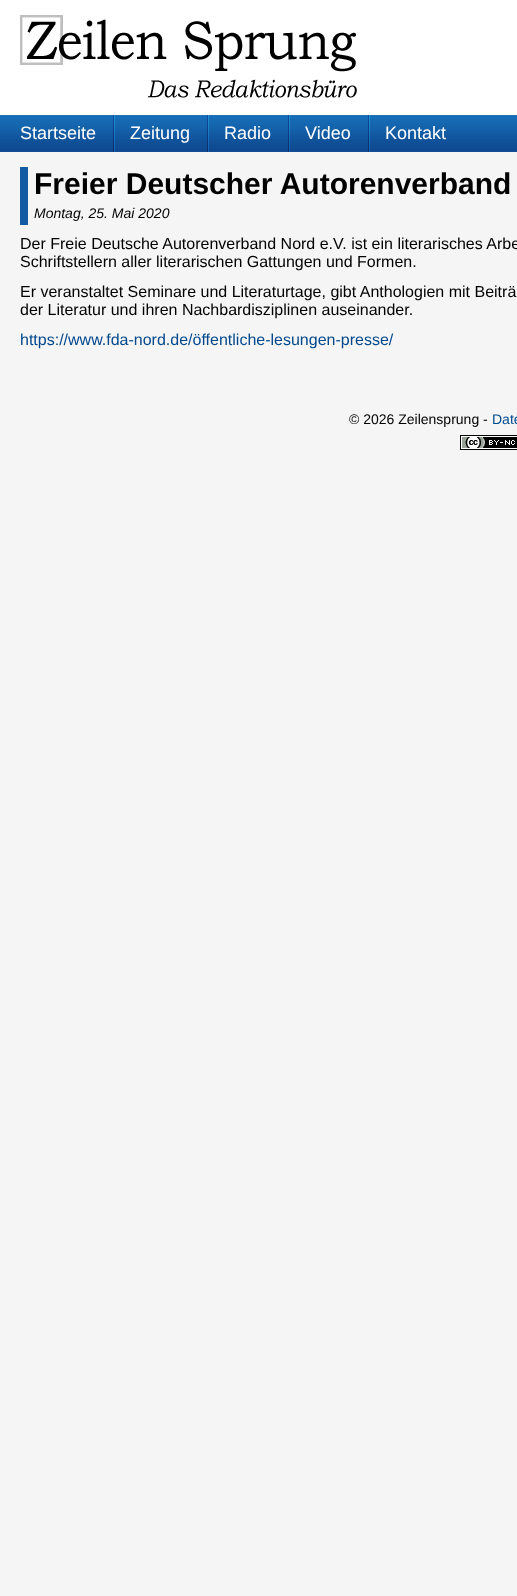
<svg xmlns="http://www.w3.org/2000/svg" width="517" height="1596">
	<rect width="100%" height="100%" fill="#F5F5F5" />
	<rect x="0" y="0" width="517" height="115" fill="#FFFFFF" />
	<image x="20" y="15" width="338" height="83" href="assets/img1.png" />
	<image x="463" y="115" width="54" height="37" href="assets/img2.png" />
	<image x="0" y="115" width="113" height="37" href="assets/img3.png" />
	<text x="20" y="139" font-family="Liberation Sans" font-size="18" fill="#FFFFFF">Startseite</text>
	<image x="113" y="115" width="94" height="37" href="assets/img4.png" />
	<text x="130" y="139" font-family="Liberation Sans" font-size="18" fill="#FFFFFF">Zeitung</text>
	<image x="207" y="115" width="81" height="37" href="assets/img5.png" />
	<text x="224" y="139" font-family="Liberation Sans" font-size="18" fill="#FFFFFF">Radio</text>
	<image x="288" y="115" width="80" height="37" href="assets/img6.png" />
	<text x="305" y="139" font-family="Liberation Sans" font-size="18" fill="#FFFFFF">Video</text>
	<image x="368" y="115" width="95" height="37" href="assets/img7.png" />
	<text x="385" y="139" font-family="Liberation Sans" font-size="18" fill="#FFFFFF">Kontakt</text>
	<rect x="20" y="167" width="8" height="58" fill="#125BA3" />
	<text x="34" y="194" font-family="Liberation Sans" font-size="30" font-weight="700" fill="#000000">Freier Deutscher Autorenverband</text>
	<text x="34" y="218" font-family="Liberation Sans" font-size="14" font-style="italic" fill="#000000">Montag, 25. Mai 2020</text>
	<g font-family="Liberation Sans" font-size="16" fill="#000000">
		<text x="20" y="249">Der Freie Deutsche Autorenverband Nord e.V. ist ein literarisches Arbe</text>
		<text x="20" y="267">Schriftstellern aller literarischen Gattungen und Formen.</text>
		<text x="20" y="297">Er veranstaltet Seminare und Literaturtage, gibt Anthologien mit Beiträ</text>
		<text x="20" y="315">der Literatur und ihren Nachbardisziplinen auseinander.</text>
	</g>
	<text x="20" y="345" font-family="Liberation Sans" font-size="16" fill="#02488D">https://www.fda-nord.de/öffentliche-lesungen-presse/</text>
	<text x="349" y="424" font-family="Liberation Sans" font-size="14" fill="#000000">© 2026 Zeilensprung -</text>
	<text x="492" y="424" font-family="Liberation Sans" font-size="14" fill="#02488D">Date</text>
	<image x="460" y="435" width="57" height="15" href="assets/img8.png" />
</svg>
